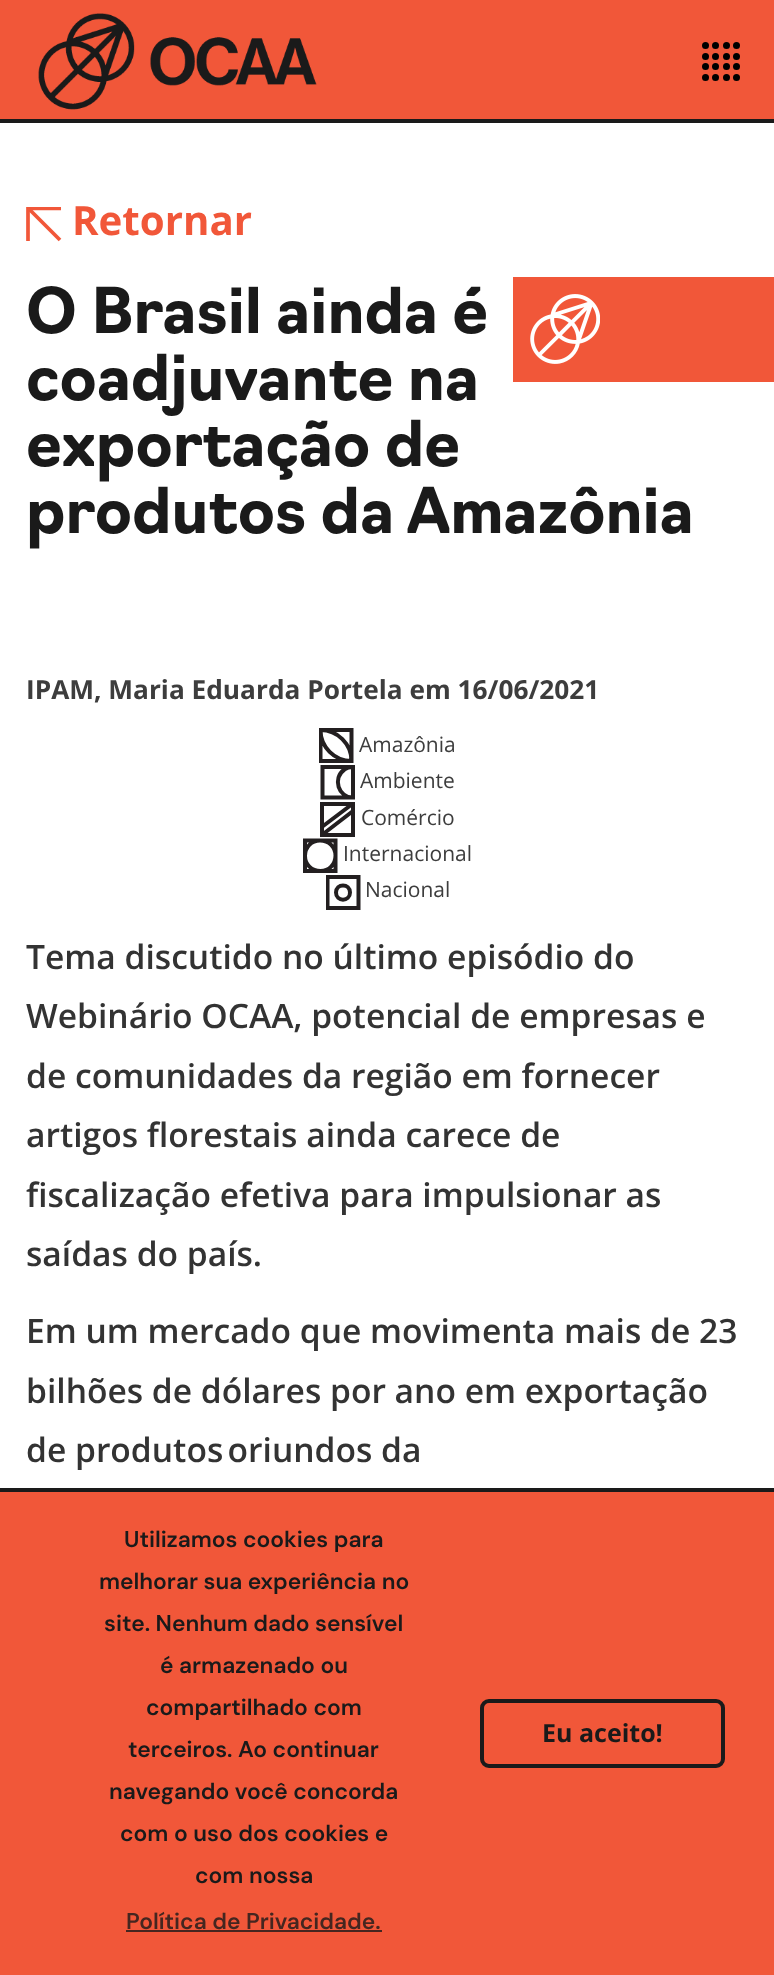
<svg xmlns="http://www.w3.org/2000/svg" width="774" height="1975">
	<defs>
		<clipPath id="clip1"><rect x="26" y="207" width="35" height="35" /></clipPath>
		<clipPath id="clip2"><rect x="319" y="728" width="35" height="35" /></clipPath>
		<clipPath id="clip3"><rect x="326" y="875" width="35" height="35" /></clipPath>
	</defs>
	<rect width="100%" height="100%" fill="#FFFFFF" />
	<rect x="0" y="0" width="774" height="119" fill="#F15739" />
	<image x="38" y="13" width="279" height="97" href="assets/img1.png" />
	<circle cx="705.5" cy="45.5" r="3.5" fill="#000000" />
	<circle cx="715.5" cy="45.5" r="3.5" fill="#000000" />
	<circle cx="726.5" cy="45.5" r="3.5" fill="#000000" />
	<circle cx="736.5" cy="45.5" r="3.5" fill="#000000" />
	<circle cx="705.5" cy="56.5" r="3.5" fill="#000000" />
	<circle cx="715.5" cy="56.5" r="3.5" fill="#000000" />
	<circle cx="726.5" cy="56.5" r="3.5" fill="#000000" />
	<circle cx="736.5" cy="56.5" r="3.5" fill="#000000" />
	<circle cx="705.5" cy="66.5" r="3.5" fill="#000000" />
	<circle cx="715.5" cy="66.5" r="3.5" fill="#000000" />
	<circle cx="726.5" cy="66.5" r="3.5" fill="#000000" />
	<circle cx="736.5" cy="66.5" r="3.5" fill="#000000" />
	<circle cx="705.5" cy="77.5" r="3.5" fill="#000000" />
	<circle cx="715.5" cy="77.5" r="3.5" fill="#000000" />
	<circle cx="726.5" cy="77.5" r="3.5" fill="#000000" />
	<circle cx="736.5" cy="77.5" r="3.5" fill="#000000" />
	<rect x="0" y="119" width="774" height="4" fill="#1A1A1A" />
	<text x="72" y="235" font-family="Open Sans" font-size="40.25" font-weight="700" fill="#F15739">Retornar</text>
	<g clip-path="url(#clip1)">
		<path d="M28 241V208.5H61" fill="none" stroke="#F15739" stroke-width="3.7" />
	</g>
	<path d="M29 209L60 240" fill="none" stroke="#F15739" stroke-width="3.7" />
	<g font-family="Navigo" font-size="61.6" font-weight="700" fill="#1A1A1A">
		<text x="26" y="333">O Brasil ainda é</text>
		<text x="26" y="400">coadjuvante na</text>
		<text x="26" y="466">exportação de</text>
		<text x="26" y="533">produtos da Amazônia</text>
	</g>
	<text x="26" y="699" font-family="Open Sans" font-size="26.25" font-weight="700" fill="#3D3D3D">IPAM, Maria Eduarda Portela em 16/06/2021</text>
	<g clip-path="url(#clip2)">
		<path d="M320.5 761V730H351.5V761ZM320.5 730C337.5 730 351.5 744 351.5 761C334.5 761 320.5 747 320.5 730Z" fill="none" stroke="#231F20" stroke-width="4" />
	</g>
	<text x="359" y="752" font-family="Open Sans" font-size="21" fill="#3D3D3D">Amazônia</text>
	<path d="M322.5 797.5V767H353V797.5ZM353 767C350 767 347 767.5 344.5 769.5C332 778 338.5 798 353 797.5" fill="none" stroke="#231F20" stroke-width="4" />
	<text x="360" y="788" font-family="Open Sans" font-size="21" fill="#3D3D3D">Ambiente</text>
	<rect x="322" y="804" width="31" height="31" fill="none" stroke="#231F20" stroke-width="4" />
	<path d="M322.5 826.5L353 803.5M322.5 834.5L353 811" fill="none" stroke="#231F20" stroke-width="4" />
	<text x="361" y="825" font-family="Open Sans" font-size="21" fill="#3D3D3D">Comércio</text>
	<path d="M305 871V840.5H335.5V871ZM305 856C305 847 311.5 840.5 320 840.5C329 840.5 335.5 847 335.5 855.5C335.5 864.5 329 871 320.5 871C311.5 871 305 864.5 305 856Z" fill="none" stroke="#231F20" stroke-width="4" />
	<text x="343" y="861" font-family="Open Sans" font-size="21" fill="#3D3D3D">Internacional</text>
	<g clip-path="url(#clip3)">
		<path d="M327.5 908V877H358.5V908Z" fill="none" stroke="#231F20" stroke-width="4" />
	</g>
	<text x="365" y="897" font-family="Open Sans" font-size="21" fill="#3D3D3D">Nacional</text>
	<path d="M336 892.5C336 883 350 883 350 892.5C350 902 336 902 336 892.5Z" fill="none" stroke="#231F20" stroke-width="4" />
	<g font-family="Open Sans" font-size="33.6" font-weight="600" fill="#333333">
		<text x="26" y="969">Tema discutido no último episódio do</text>
		<text x="26" y="1028">Webinário OCAA, potencial de empresas e</text>
		<text x="26" y="1088">de comunidades da região em fornecer</text>
		<text x="26" y="1147">artigos florestais ainda carece de</text>
		<text x="26" y="1207">fiscalização efetiva para impulsionar as</text>
		<text x="26" y="1266">saídas do país.</text>
		<text x="26" y="1343">Em um mercado que movimenta mais de 23</text>
		<text x="26" y="1403">bilhões de dólares por ano em exportação</text>
		<text x="26" y="1462">de produtos oriundos da</text>
	</g>
	<rect x="513" y="277" width="261" height="105" fill="#F15739" />
	<image x="530" y="294" width="70" height="70" href="assets/img2.png" />
	<rect x="0" y="1492" width="774" height="483" fill="#F15739" />
	<rect x="0" y="1488" width="774" height="4" fill="#1A1A1A" />
	<g font-family="DM Sans" font-size="22.75" font-weight="600" fill="#1A1A1A">
		<text x="124" y="1547">Utilizamos cookies para</text>
		<text x="99" y="1589">melhorar sua experiência no</text>
		<text x="104" y="1631">site. Nenhum dado sensível</text>
		<text x="160" y="1673">é armazenado ou</text>
		<text x="146" y="1715">compartilhado com</text>
		<text x="128" y="1757">terceiros. Ao continuar</text>
		<text x="109" y="1799">navegando você concorda</text>
		<text x="120" y="1841">com o uso dos cookies e</text>
		<text x="195" y="1883">com nossa</text>
	</g>
	<text x="126" y="1929" font-family="DM Sans" font-size="22.75" font-weight="600" fill="#452620">Política de Privacidade.</text>
	<rect x="126" y="1930" width="256" height="2" fill="#452620" />
	<rect x="482" y="1701" width="241" height="65" rx="7" fill="none" stroke="#1A1A1A" stroke-width="4" />
	<text x="542" y="1742" font-family="Open Sans" font-size="25" font-weight="700" fill="#1A1A1A">Eu aceito!</text>
</svg>
